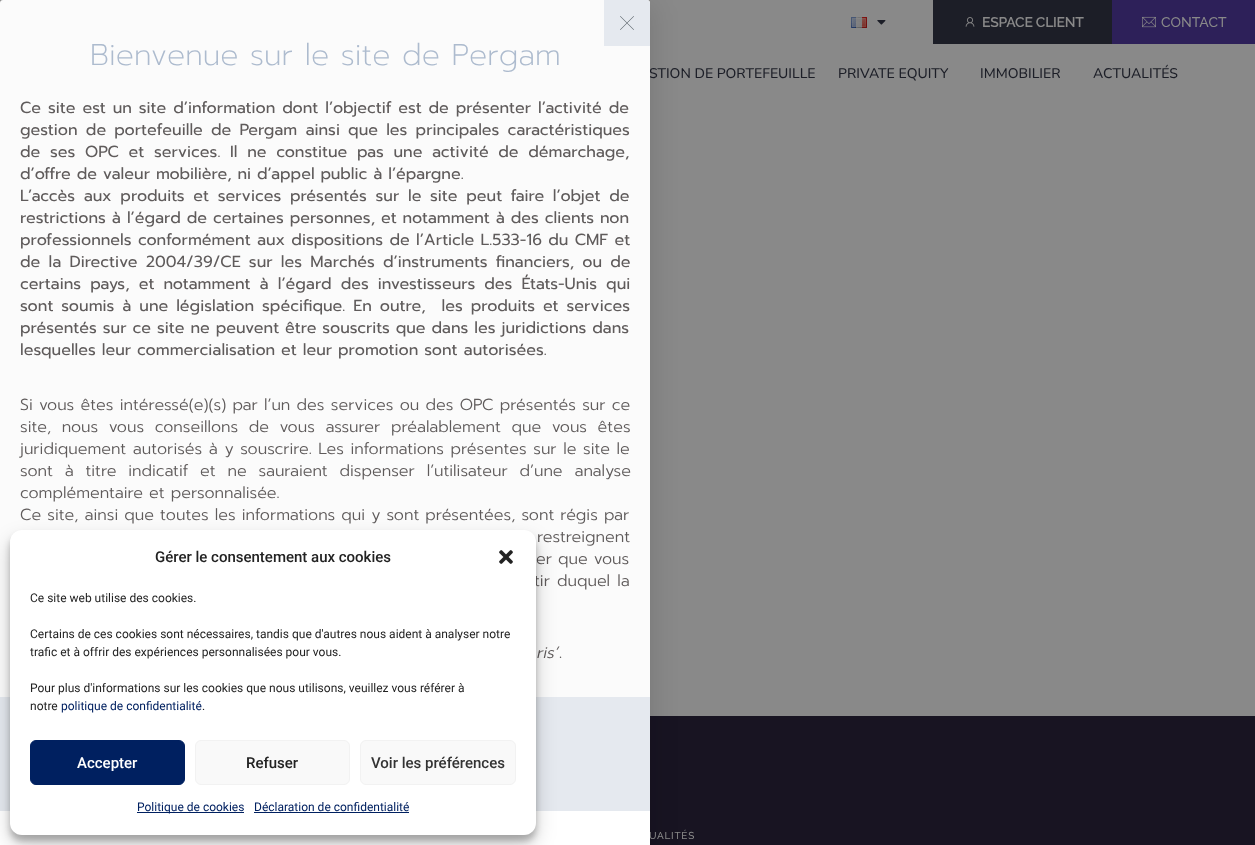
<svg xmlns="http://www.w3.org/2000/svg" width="1255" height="845">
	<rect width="100%" height="100%" fill="#898989" />
	<rect x="650" y="716" width="605" height="129" fill="#181422" />
	<rect x="-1" y="5" width="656" height="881" rx="6" fill="#000000" fill-opacity="0.1" filter="blur(11.5px)" />
	<text x="649" y="78" font-family="Nunito" font-size="14" font-weight="500" fill="#1C1E27">STION DE PORTEFEUILLE</text>
	<text x="649" y="839" font-family="Raleway" font-size="10" font-weight="500" letter-spacing="0.75" fill="#898989">UALITÉS</text>
	<rect x="0" y="0" width="650" height="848" rx="3" fill="#FBFBFB" />
	<path d="M604 0H647C648.5 0 650 1.5 650 3V46H604Z" fill="#E5E9EF" />
	<image x="620" y="16" width="14" height="14" href="assets/img1.png" />
	<text x="90" y="65" font-family="Prompt" font-size="30" font-weight="200" fill="#ADBBCE">Bienvenue sur le site de Pergam</text>
	<g font-family="Prompt" font-size="16" fill="#5F5B5B">
		<text x="20" y="113" word-spacing="1">Ce site est un site d’information dont l’objectif est de présenter l’activité de</text>
		<text x="20" y="135" word-spacing="2.25">gestion de portefeuille de Pergam ainsi que les principales caractéristiques</text>
		<text x="20" y="157" word-spacing="3.75">de ses OPC et services. Il ne constitue pas une activité de démarchage,</text>
		<text x="20" y="179">d’offre de valeur mobilière, ni d’appel public à l’épargne.</text>
		<text x="20" y="201" word-spacing="2.75">L’accès aux produits et services présentés sur le site peut faire l’objet de</text>
		<text x="20" y="223">restrictions à l’égard de certaines personnes, et notamment à des clients non</text>
		<text x="20" y="245" word-spacing="0.4">professionnels conformément aux dispositions de l’Article L.533-16 du CMF et</text>
		<text x="20" y="267" word-spacing="2.25">de la Directive 2004/39/CE sur les Marchés d’instruments financiers, ou de</text>
		<text x="20" y="289" word-spacing="3.1">certains pays, et notamment à l’égard des investisseurs des États-Unis qui</text>
		<text x="20" y="311" word-spacing="2" xml:space="preserve">sont soumis à une législation spécifique. En outre,  les produits et services</text>
		<text x="20" y="333">présentés sur ce site ne peuvent être souscrits que dans les juridictions dans</text>
		<text x="20" y="355">lesquelles leur commercialisation et leur promotion sont autorisées.</text>
	</g>
	<g font-family="Prompt" font-size="16" font-weight="300" fill="#5F5B5B">
		<text x="20" y="410" word-spacing="0.2">Si vous êtes intéressé(e)(s) par l’un des services ou des OPC présentés sur ce</text>
		<text x="20" y="432" word-spacing="4.5">site, nous vous conseillons de vous assurer préalablement que vous êtes</text>
		<text x="20" y="454" word-spacing="0.5">juridiquement autorisés à y souscrire. Les informations présentes sur le site le</text>
		<text x="20" y="476" word-spacing="5.75">sont à titre indicatif et ne sauraient dispenser l’utilisateur d’une analyse</text>
		<text x="20" y="498">complémentaire et personnalisée.</text>
		<text x="20" y="520">Ce site, ainsi que toutes les informations qui y sont présentées, sont régis par</text>
		<text x="537" y="542" word-spacing="2">restreignent</text>
		<text x="536" y="564">er que vous</text>
		<text x="534" y="586" word-spacing="1">tir duquel la</text>
	</g>
	<text x="537" y="658" font-family="Prompt" font-size="16" font-weight="300" font-style="italic" fill="#5F5B5B">ris’</text>
	<text x="559" y="658" font-family="Prompt" font-size="16" font-weight="300" fill="#5F5B5B">.</text>
	<rect x="0" y="697" width="650" height="114" fill="#E5E9EF" />
	<rect x="0" y="811" width="650" height="34" fill="#FFFFFF" />
	<image x="851" y="17" width="16" height="11" href="assets/img2.png" />
	<image x="877" y="20" width="9" height="5" href="assets/img3.png" />
	<rect x="933" y="0" width="179" height="44" fill="#1C1E27" />
	<image x="965" y="17" width="10" height="10" href="assets/img4.png" />
	<text x="982" y="27" font-family="Raleway" font-size="14" font-weight="600" letter-spacing="-0.25" fill="#898989">ESPACE CLIENT</text>
	<rect x="1112" y="0" width="143" height="44" fill="#2D2059" />
	<image x="1142" y="16" width="14" height="12" href="assets/img5.png" />
	<text x="1161" y="27" font-family="Raleway" font-size="14" font-weight="500" fill="#898989">CONTACT</text>
	<g font-family="Nunito" font-size="14" font-weight="500" fill="#1C1E27">
		<text x="838" y="78">PRIVATE EQUITY</text>
		<text x="980" y="78">IMMOBILIER</text>
		<text x="1093" y="78">ACTUALITÉS</text>
	</g>
	<rect x="10" y="536" width="526" height="305" rx="12" fill="#000000" fill-opacity="0.23" filter="blur(3px)" />
	<rect x="10" y="540" width="526" height="305" rx="12" fill="#000000" fill-opacity="0.19" filter="blur(10px)" />
	<rect x="10" y="530" width="526" height="305" rx="12" fill="#FFFFFF" />
	<text x="155" y="562" font-family="Roboto" font-size="15" font-weight="500" fill="#222222">Gérer le consentement aux cookies</text>
	<image x="499" y="550" width="14" height="14" href="assets/img6.png" />
	<g font-family="Roboto" font-size="12" fill="#222222">
		<text x="30" y="602">Ce site web utilise des cookies.</text>
		<text x="30" y="638">Certains de ces cookies sont nécessaires, tandis que d'autres nous aident à analyser notre</text>
		<text x="30" y="656">trafic et à offrir des expériences personnalisées pour vous.</text>
		<text x="30" y="692">Pour plus d'informations sur les cookies que nous utilisons, veuillez vous référer à</text>
		<text x="30" y="710">notre</text>
	</g>
	<text x="61" y="710" font-family="Roboto" font-size="12" fill="#002060">politique de confidentialité</text>
	<text x="202" y="710" font-family="Roboto" font-size="12" fill="#222222">.</text>
	<rect x="30.5" y="740.5" width="154" height="44" rx="5.5" fill="#002060" stroke="#002060" />
	<text x="77" y="768" font-family="Roboto" font-size="15" font-weight="500" fill="#FFFFFF">Accepter</text>
	<rect x="195.5" y="740.5" width="154" height="44" rx="5.5" fill="#F9F9F9" stroke="#F2F2F2" />
	<text x="246" y="768" font-family="Roboto" font-size="15" font-weight="500" fill="#222222">Refuser</text>
	<rect x="360.5" y="740.5" width="155" height="44" rx="5.5" fill="#F9F9F9" stroke="#F2F2F2" />
	<text x="371" y="768" font-family="Roboto" font-size="15" font-weight="500" fill="#333333">Voir les préférences</text>
	<rect x="137" y="812" width="107" height="1" fill="#002060" />
	<g font-family="Roboto" font-size="12" fill="#002060">
		<text x="137" y="811">Politique de cookies</text>
		<text x="254" y="811">Déclaration de confidentialité</text>
	</g>
	<rect x="254" y="812" width="155" height="1" fill="#002060" />
</svg>
